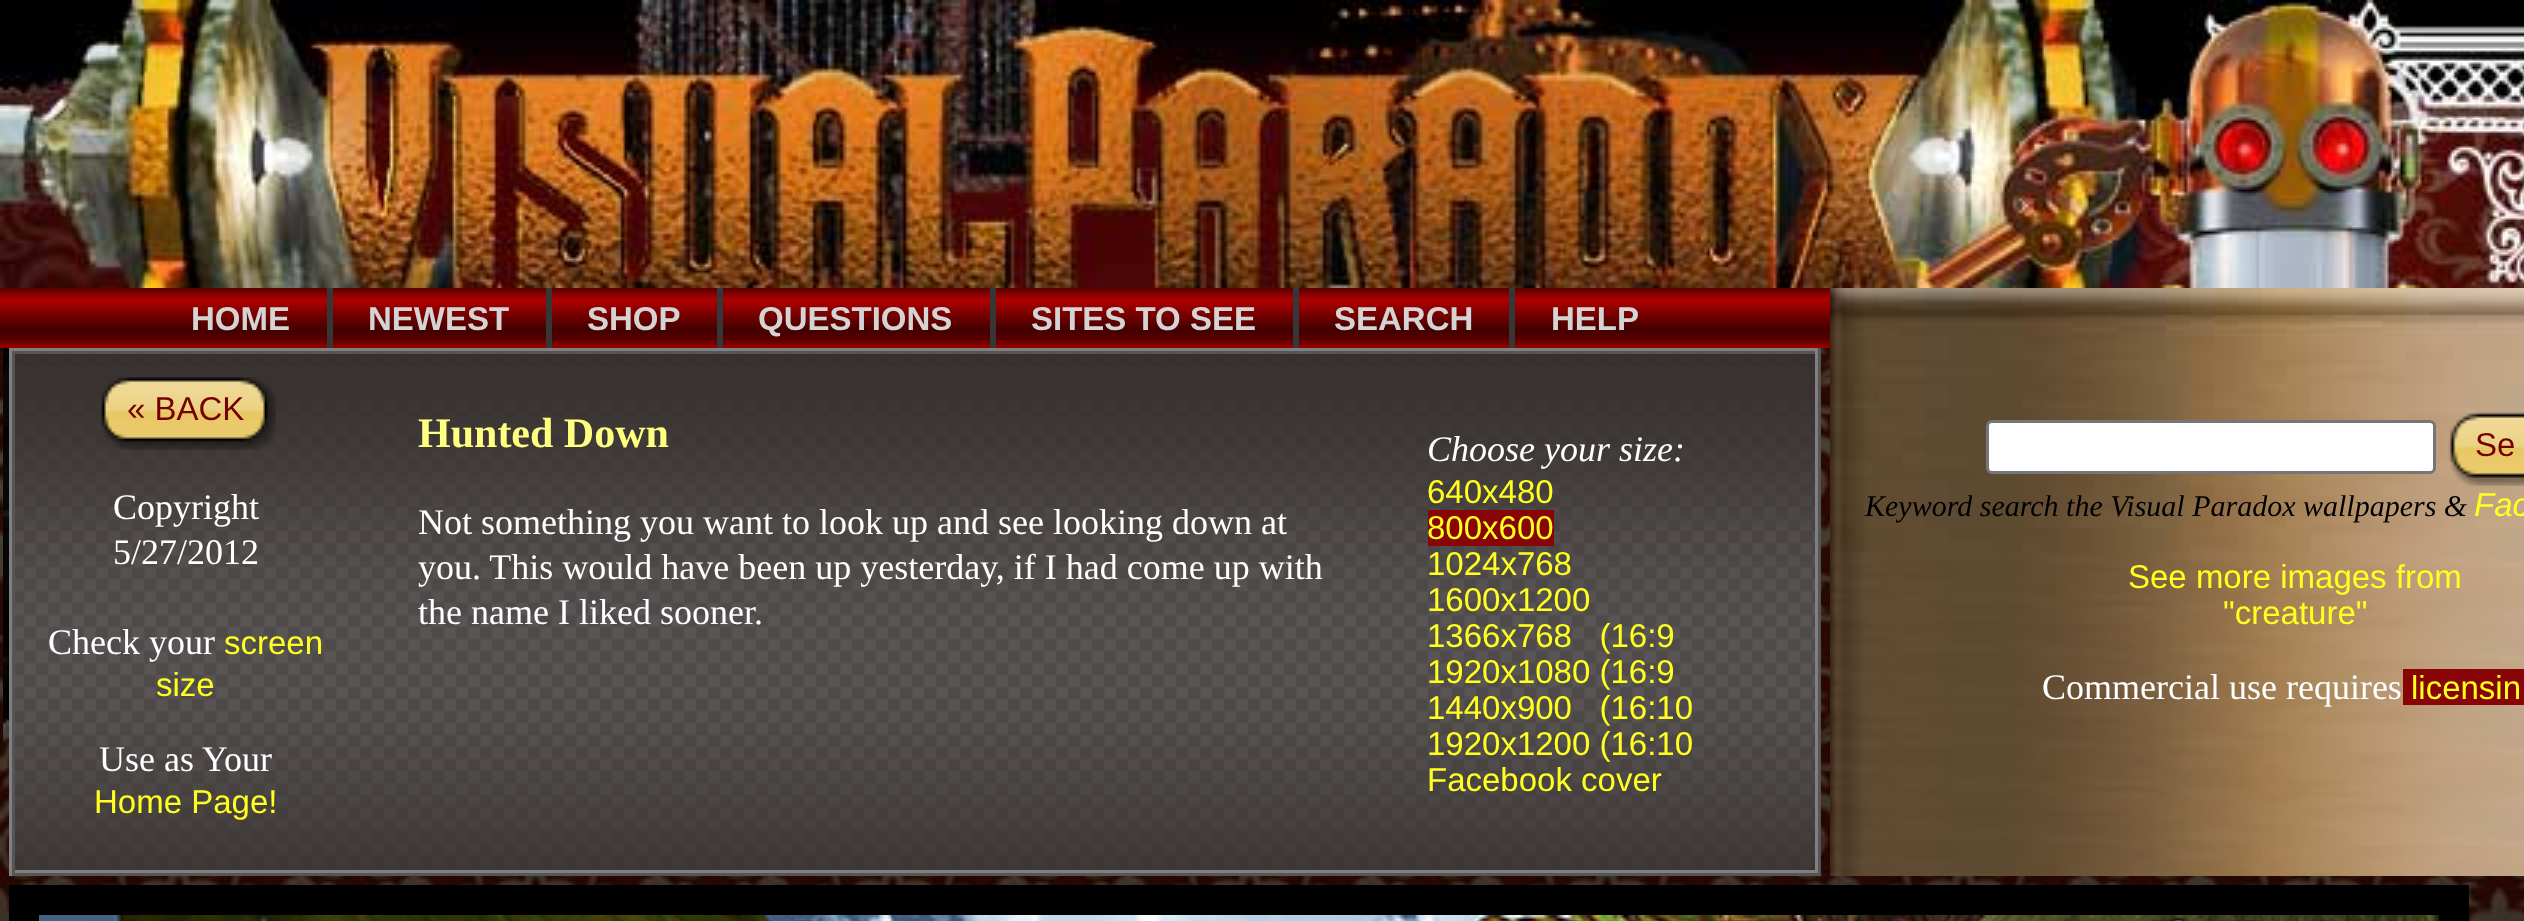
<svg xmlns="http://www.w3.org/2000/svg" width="2524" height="921">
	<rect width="100%" height="100%" fill="#FFFFFF" />
	<image x="0" y="0" width="2524" height="288" href="assets/img1.png" />
	<image x="0" y="288" width="1830" height="60" href="assets/img2.png" />
	<text x="191" y="330" font-family="Liberation Sans" font-size="33" font-weight="700" fill="#D4D4D4">HOME</text>
	<rect x="327" y="288" width="6" height="60" fill="#363636" />
	<text x="368" y="330" font-family="Liberation Sans" font-size="33" font-weight="700" fill="#D4D4D4">NEWEST</text>
	<rect x="546" y="288" width="6" height="60" fill="#363636" />
	<text x="587" y="330" font-family="Liberation Sans" font-size="33" font-weight="700" fill="#D4D4D4">SHOP</text>
	<rect x="717" y="288" width="6" height="60" fill="#363636" />
	<text x="758" y="330" font-family="Liberation Sans" font-size="33" font-weight="700" fill="#D4D4D4">QUESTIONS</text>
	<rect x="990" y="288" width="6" height="60" fill="#363636" />
	<text x="1031" y="330" font-family="Liberation Sans" font-size="33" font-weight="700" fill="#D4D4D4">SITES TO SEE</text>
	<rect x="1293" y="288" width="6" height="60" fill="#363636" />
	<text x="1334" y="330" font-family="Liberation Sans" font-size="33" font-weight="700" fill="#D4D4D4">SEARCH</text>
	<rect x="1509" y="288" width="6" height="60" fill="#363636" />
	<text x="1551" y="330" font-family="Liberation Sans" font-size="33" font-weight="700" fill="#D4D4D4">HELP</text>
	<image x="0" y="348" width="2524" height="573" href="assets/img9.png" />
	<image x="3" y="348" width="6" height="405" href="assets/img10.png" />
	<rect x="0" y="348" width="1830" height="528" fill="#000000" fill-opacity="0.7" />
	<image x="15" y="354" width="1800" height="516" href="assets/img3.png" />
	<rect x="9" y="348" width="1812" height="3" fill="#808080" />
	<rect x="1818" y="348" width="3" height="528" fill="#555555" />
	<rect x="9" y="873" width="1812" height="3" fill="#555555" />
	<rect x="9" y="348" width="3" height="528" fill="#808080" />
	<rect x="12" y="351" width="1806" height="3" fill="#555555" />
	<rect x="1815" y="351" width="3" height="522" fill="#808080" />
	<rect x="12" y="870" width="1806" height="3" fill="#808080" />
	<rect x="12" y="351" width="3" height="522" fill="#555555" />
	<image x="101" y="377" width="130" height="73" href="assets/img4.png" />
	<image x="231" y="377" width="45" height="73" href="assets/img5.png" />
	<text x="127" y="420" font-family="Liberation Sans" font-size="33" fill="#750000">« BACK</text>
	<g font-family="Liberation Serif" font-size="36" fill="#FFFFFF">
		<text x="113" y="519">Copyright</text>
		<text x="113" y="564">5/27/2012</text>
		<text x="48" y="654">Check your</text>
	</g>
	<g font-family="Liberation Sans" font-size="33" fill="#FFFF20">
		<text x="224" y="654">screen</text>
		<text x="156" y="696">size</text>
	</g>
	<text x="99" y="771" font-family="Liberation Serif" font-size="36" fill="#FFFFFF">Use as Your</text>
	<text x="94" y="813" font-family="Liberation Sans" font-size="33" fill="#FFFF20">Home Page!</text>
	<text x="418" y="447" font-family="Liberation Serif" font-size="42" font-weight="700" fill="#FFFF80">Hunted Down</text>
	<g font-family="Liberation Serif" font-size="36" fill="#FFFFFF">
		<text x="418" y="534">Not something you want to look up and see looking down at</text>
		<text x="418" y="579">you. This would have been up yesterday, if I had come up with</text>
		<text x="418" y="624">the name I liked sooner.</text>
	</g>
	<text x="1427" y="461" font-family="Liberation Serif" font-size="36" font-style="italic" fill="#FFFFFF">Choose your size:</text>
	<text x="1427" y="503" font-family="Liberation Sans" font-size="33" fill="#FFFF20">640x480</text>
	<rect x="1428" y="510" width="126" height="36" fill="#880505" />
	<g font-family="Liberation Sans" font-size="33" fill="#FFFF20">
		<text x="1427" y="539">800x600</text>
		<text x="1427" y="575">1024x768</text>
		<text x="1427" y="611">1600x1200</text>
		<text x="1427" y="647" xml:space="preserve">1366x768   (16:9</text>
		<text x="1427" y="683">1920x1080 (16:9</text>
		<text x="1427" y="719" xml:space="preserve">1440x900   (16:10</text>
		<text x="1427" y="755">1920x1200 (16:10</text>
		<text x="1427" y="791">Facebook cover</text>
	</g>
	<image x="1830" y="288" width="694" height="264" href="assets/img6.png" />
	<rect x="1987.5" y="421.5" width="447" height="51" rx="4.5" fill="#FFFFFF" stroke="#767676" stroke-width="3" />
	<image x="2448" y="411" width="76" height="75" href="assets/img7.png" />
	<text x="2475" y="456" font-family="Liberation Sans" font-size="33" fill="#750000">Se</text>
	<text x="1865" y="516" font-family="Liberation Serif" font-size="30" font-style="italic" fill="#000000">Keyword search the Visual Paradox wallpapers &amp;</text>
	<text x="2474" y="516" font-family="Liberation Sans" font-size="33" font-style="italic" fill="#FFFF20">Fac</text>
	<image x="1830" y="552" width="694" height="324" href="assets/img8.png" />
	<g font-family="Liberation Sans" font-size="33" fill="#FFFF20">
		<text x="2128" y="588">See more images from</text>
		<text x="2223" y="624">"creature"</text>
	</g>
	<text x="2042" y="699" font-family="Liberation Serif" font-size="36" fill="#FFFFFF">Commercial use requires</text>
	<rect x="2403" y="669" width="121" height="36" fill="#880505" />
	<text x="2411" y="699" font-family="Liberation Sans" font-size="33" fill="#FFFF20">licensin</text>
	<rect x="0" y="876" width="2524" height="45" fill="#000000" fill-opacity="0.7" />
	<rect x="24" y="900" width="2430" height="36" fill="none" stroke="#000000" stroke-width="30" />
	<image x="39" y="915" width="2400" height="6" href="assets/img11.png" />
</svg>
